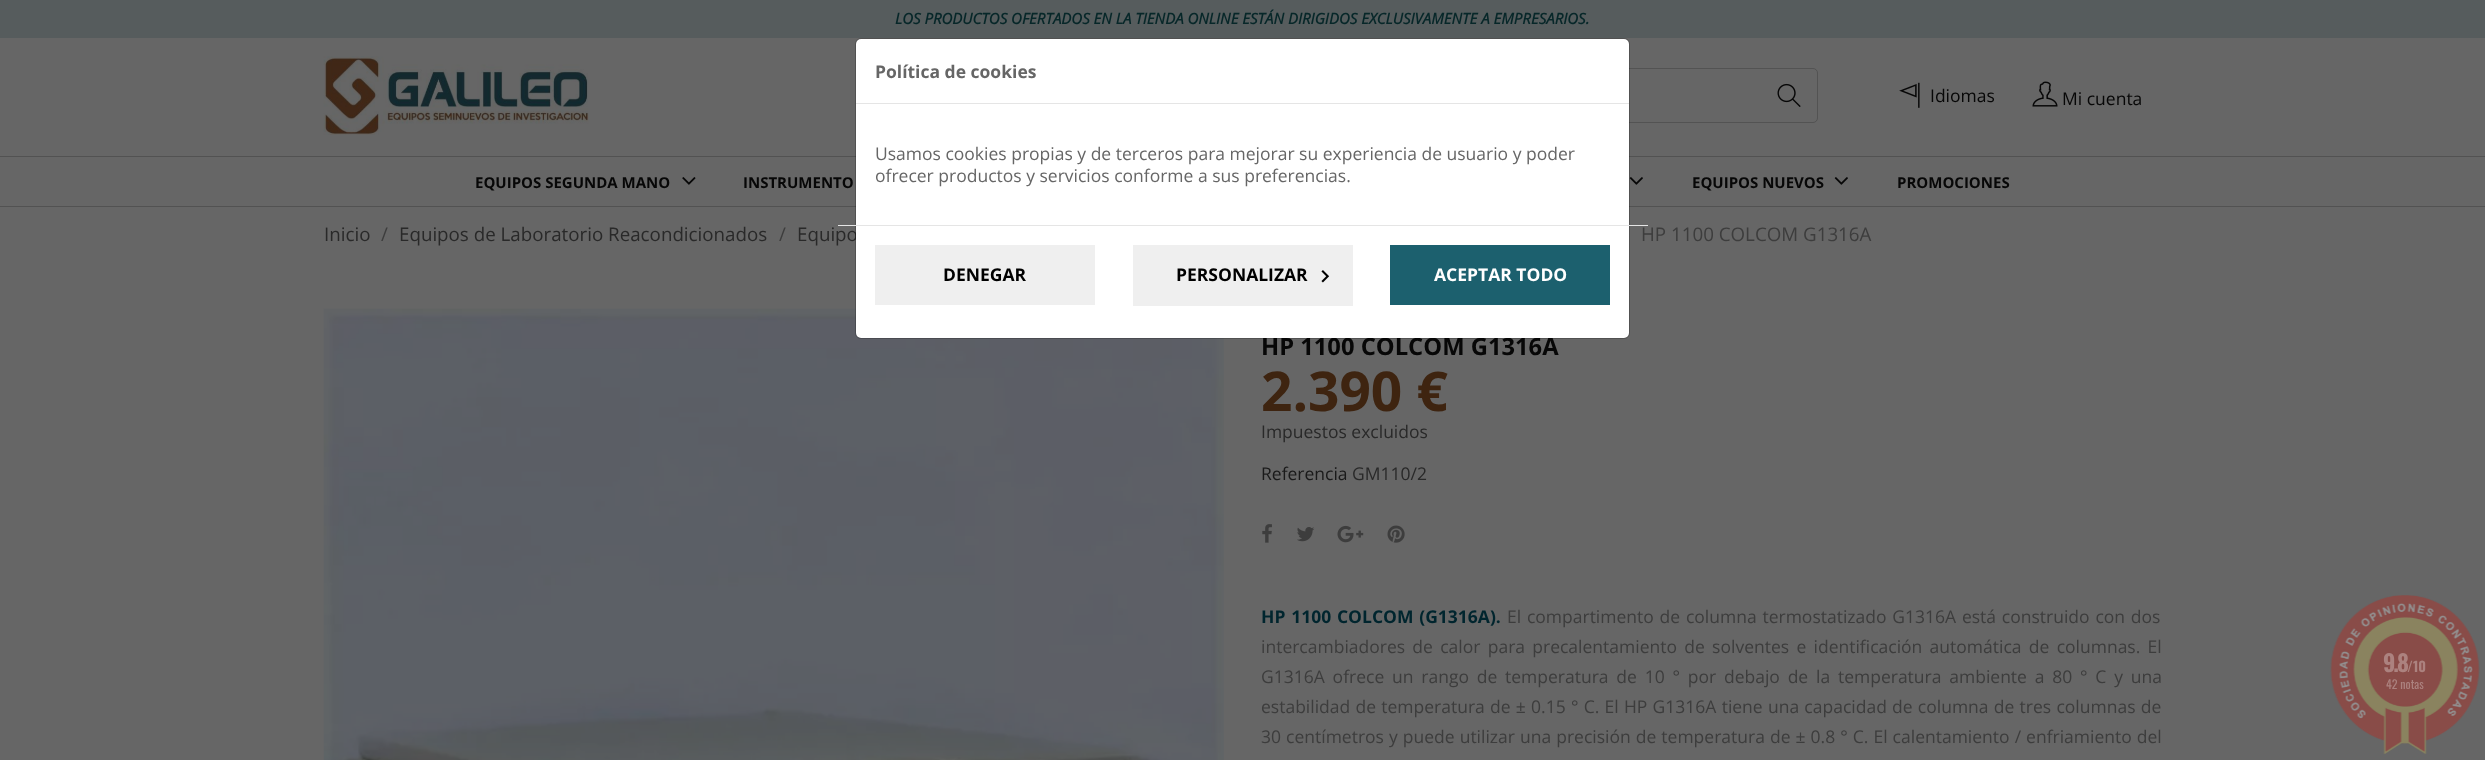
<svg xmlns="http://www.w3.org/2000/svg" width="2485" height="760">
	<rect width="100%" height="100%" fill="#666666" />
	<rect x="0" y="0" width="2485" height="38" fill="#565C5D" />
	<text x="895" y="24" font-family="Open Sans" font-size="15" font-weight="700" font-style="italic" fill="#072729">LOS PRODUCTOS OFERTADOS EN LA TIENDA ONLINE ESTÁN DIRIGIDOS EXCLUSIVAMENTE A EMPRESARIOS.</text>
	<image x="323" y="56" width="266" height="79" href="assets/img1.png" />
	<rect x="884.5" y="68.5" width="933" height="54" rx="4.5" fill="none" stroke="#535353" />
	<image x="1777" y="83" width="24" height="24" href="assets/img2.png" />
	<image x="1899" y="82" width="21" height="26" href="assets/img3.png" />
	<text x="1930" y="102" font-family="Open Sans" font-size="17.5" fill="#070707">Idiomas</text>
	<image x="2032" y="81" width="26" height="26" href="assets/img4.png" />
	<text x="2062" y="105" font-family="Open Sans" font-size="17.5" fill="#070707">Mi cuenta</text>
	<rect x="0" y="156" width="2485" height="1" fill="#525252" />
	<rect x="0" y="206" width="2485" height="1" fill="#525252" />
	<text x="475" y="188" font-family="Open Sans" font-size="15" font-weight="700" fill="#070707">EQUIPOS SEGUNDA MANO</text>
	<image x="682" y="177" width="14" height="8" href="assets/img5.png" />
	<text x="743" y="188" font-family="Open Sans" font-size="15" font-weight="700" fill="#070707">INSTRUMENTO</text>
	<image x="1629" y="177" width="14" height="8" href="assets/img6.png" />
	<text x="1692" y="188" font-family="Open Sans" font-size="15" font-weight="700" fill="#070707">EQUIPOS NUEVOS</text>
	<image x="1834" y="177" width="14" height="8" href="assets/img6.png" />
	<text x="1897" y="188" font-family="Open Sans" font-size="15" font-weight="700" fill="#070707">PROMOCIONES</text>
	<text x="324" y="241" font-family="Open Sans" font-size="18.75" fill="#292929">Inicio</text>
	<text x="381" y="241" font-family="Open Sans" font-size="18.75" fill="#3D3D3D">/</text>
	<text x="399" y="241" font-family="Open Sans" font-size="18.75" fill="#292929">Equipos de Laboratorio Reacondicionados</text>
	<text x="779" y="241" font-family="Open Sans" font-size="18.75" fill="#3D3D3D">/</text>
	<text x="797" y="241" font-family="Open Sans" font-size="18.75" fill="#292929">Equipo</text>
	<text x="1641" y="241" font-family="Open Sans" font-size="18.75" fill="#3D3D3D">HP 1100 COLCOM G1316A</text>
	<image x="323" y="308" width="901" height="452" href="assets/img7.png" />
	<text x="1261" y="355" font-family="Open Sans" font-size="23.75" font-weight="700" fill="#070707">HP 1100 COLCOM G1316A</text>
	<text x="1261" y="411" font-family="Open Sans" font-size="55" font-weight="700" fill="#3E2410">2.390 €</text>
	<text x="1261" y="438" font-family="Open Sans" font-size="17.5" fill="#292929">Impuestos excluidos</text>
	<text x="1261" y="480" font-family="Open Sans" font-size="17.5" fill="#1A1A1A">Referencia</text>
	<text x="1352" y="480" font-family="Open Sans" font-size="17.5" fill="#292929">GM110/2</text>
	<image x="1262" y="524" width="10" height="19" href="assets/img8.png" />
	<image x="1297" y="527" width="18" height="15" href="assets/img9.png" />
	<image x="1337" y="525" width="27" height="18" href="assets/img10.png" />
	<image x="1387" y="525" width="18" height="18" href="assets/img11.png" />
	<text x="1261" y="623" word-spacing="1.25" font-family="Open Sans" font-size="17.5" font-weight="700" fill="#00252E">HP 1100 COLCOM (G1316A).</text>
	<g font-family="Open Sans" font-size="17.5" fill="#3D3D3D">
		<text x="1507" y="623" word-spacing="1.25">El compartimento de columna termostatizado G1316A está construido con dos</text>
		<text x="1261" y="653" word-spacing="2.75">intercambiadores de calor para precalentamiento de solventes e identificación automática de columnas. El</text>
		<text x="1261" y="683" word-spacing="3.25">G1316A ofrece un rango de temperatura de 10 ° por debajo de la temperatura ambiente a 80 ° C y una</text>
		<text x="1261" y="713" word-spacing="0.7">estabilidad de temperatura de ± 0.15 ° C. El HP G1316A tiene una capacidad de columna de tres columnas de</text>
		<text x="1261" y="743" word-spacing="0.5">30 centímetros y puede utilizar una precisión de temperatura de ± 0.8 ° C. El calentamiento / enfriamiento del</text>
	</g>
	<rect x="856" y="39" width="773" height="299" rx="5" fill="#FFFFFF" />
	<rect x="855.5" y="38.5" width="774" height="300" rx="5.5" fill="none" stroke="#000000" stroke-opacity="0.2" />
	<rect x="856" y="103" width="773" height="1" fill="#E5E5E5" />
	<text x="875" y="78" font-family="Open Sans" font-size="17.5" font-weight="700" fill="#666666">Política de cookies</text>
	<g font-family="Open Sans" font-size="17.5" fill="#666666">
		<text x="875" y="160">Usamos cookies propias y de terceros para mejorar su experiencia de usuario y poder</text>
		<text x="875" y="182">ofrecer productos y servicios conforme a sus preferencias.</text>
	</g>
	<rect x="838" y="225" width="810" height="1" fill="#E5E5E5" />
	<rect x="875" y="245" width="220" height="60" fill="#EFEFEF" />
	<text x="943" y="281" font-family="Open Sans" font-size="17.5" font-weight="700" fill="#000000">DENEGAR</text>
	<rect x="1133" y="245" width="220" height="61" fill="#EFEFEF" />
	<text x="1176" y="281" font-family="Open Sans" font-size="17.5" font-weight="700" fill="#000000">PERSONALIZAR</text>
	<image x="1321" y="270" width="9" height="13" href="assets/img12.png" />
	<rect x="1390" y="245" width="220" height="60" fill="#1C606E" />
	<text x="1434" y="281" font-family="Open Sans" font-size="17.5" font-weight="700" fill="#FFFFFF">ACEPTAR TODO</text>
	<image x="2330" y="595" width="150" height="159" href="assets/img13.png" />
	<text x="2383" y="672" font-family="Oswald" font-size="23" font-weight="700" letter-spacing="-2" fill="#AC827F">9.8</text>
	<text x="2407" y="672" font-family="Oswald" font-size="14" font-weight="700" fill="#AC827F">/10</text>
	<text x="2386" y="689" font-family="Oswald" font-size="12" fill="#AC827F">42 notas</text>
</svg>
